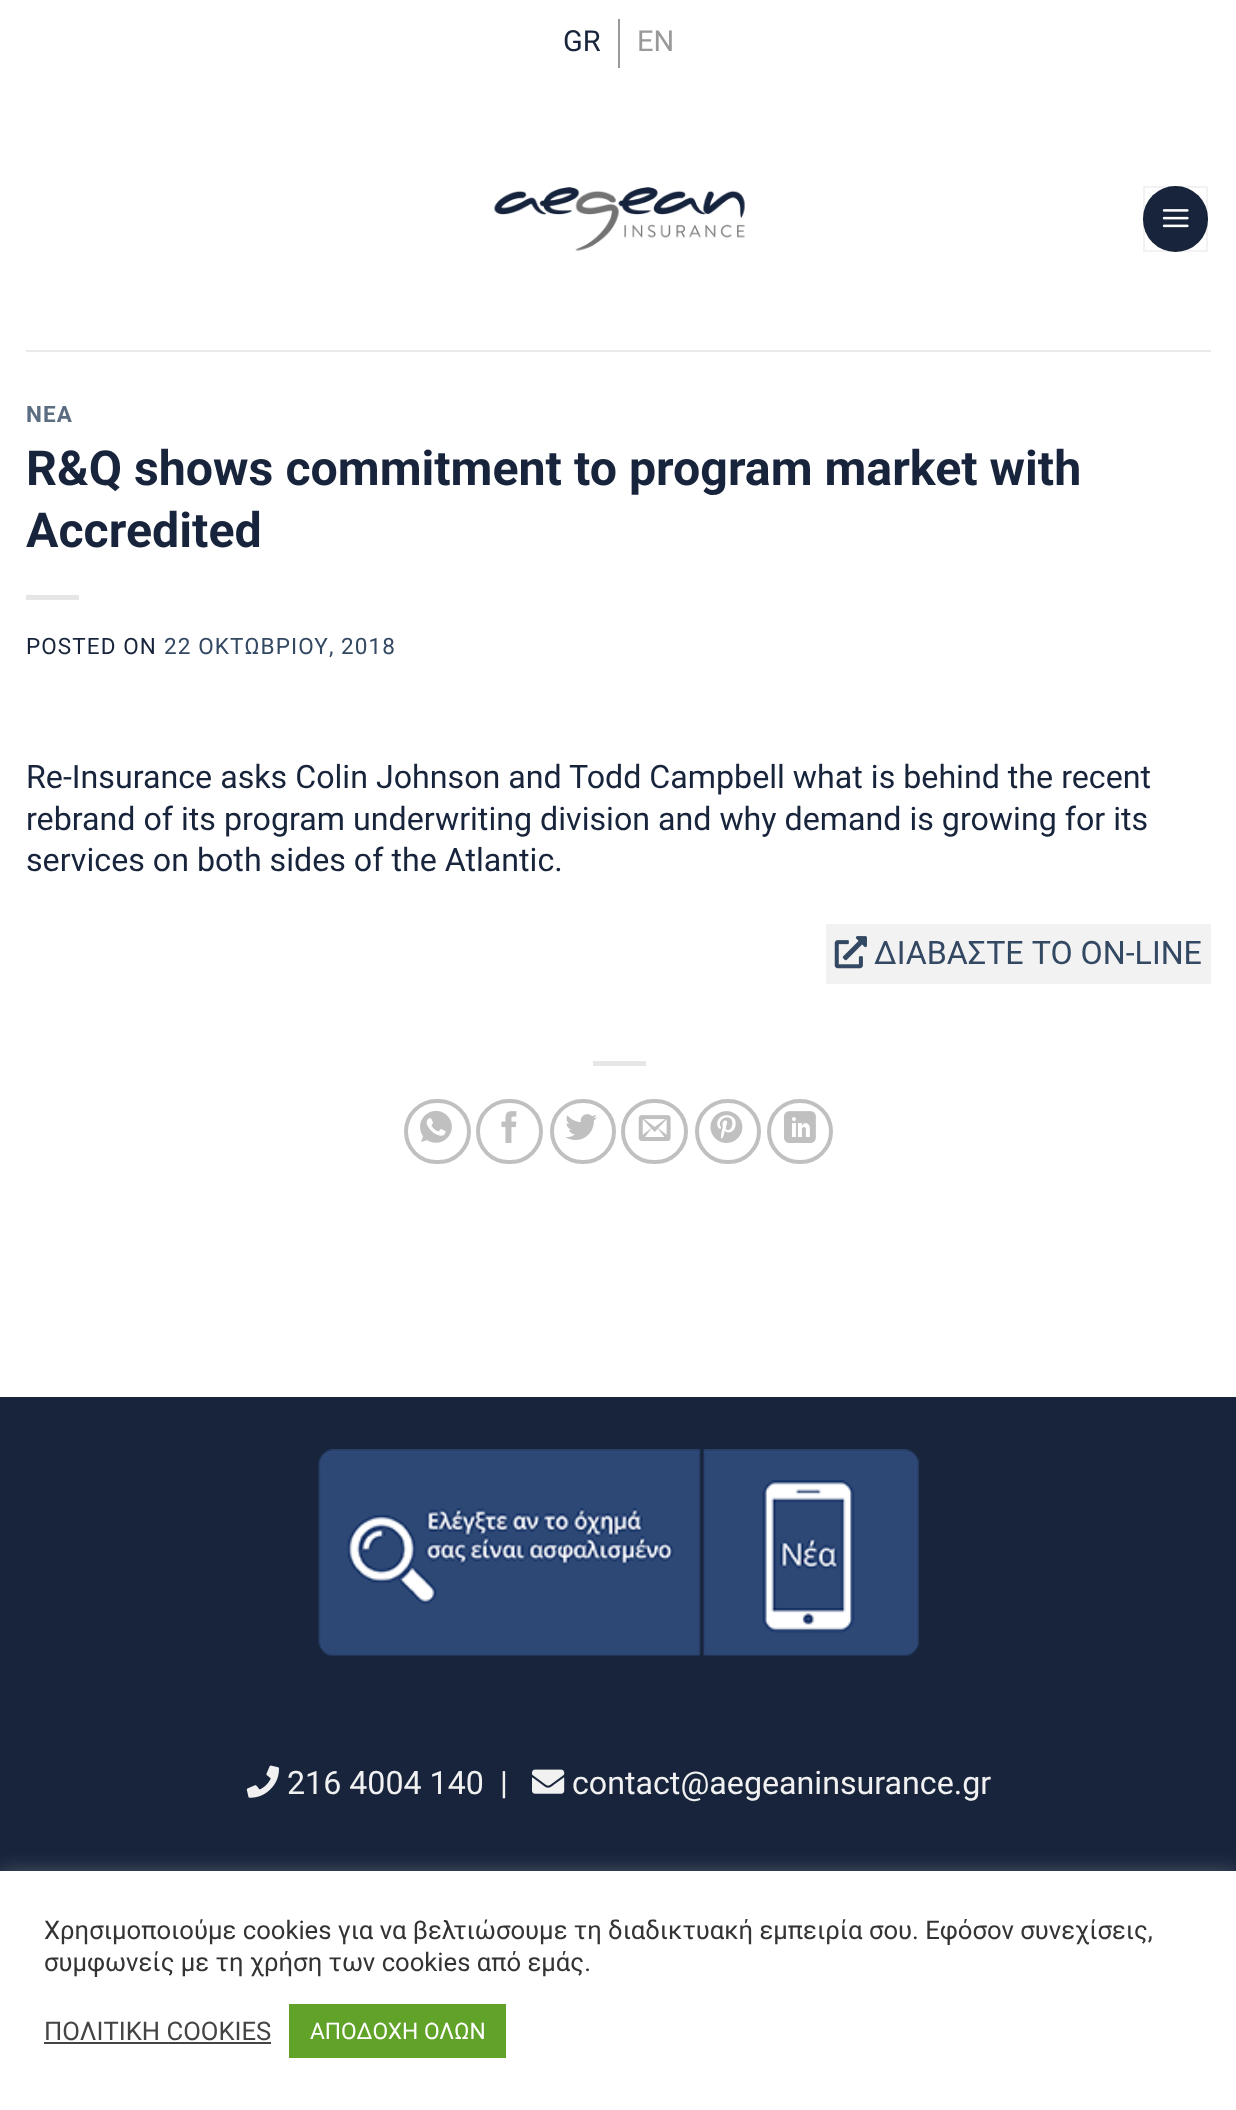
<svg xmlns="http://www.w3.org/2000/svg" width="1236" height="2110">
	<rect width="100%" height="100%" fill="#FFFFFF" />
	<rect x="618" y="19" width="2" height="49" fill="#999999" />
	<text x="563" y="51" font-family="Roboto" font-size="29" fill="#17243B">GR</text>
	<text x="637" y="51" font-family="Roboto" font-size="29" fill="#999999">EN</text>
	<image x="494" y="187" width="251" height="64" href="assets/img1.png" />
	<rect x="1143" y="186" width="65" height="66" rx="32.5" fill="#17243B" />
	<rect x="1144" y="187" width="63" height="64" fill="none" stroke="#000000" stroke-opacity="0.05" stroke-width="2" />
	<image x="1162" y="209" width="27" height="19" href="assets/img2.png" />
	<rect x="26" y="350" width="1185" height="2" fill="#E8E9EB" />
	<text x="26" y="422" font-family="Roboto" font-size="22.5" font-weight="700" letter-spacing="1.1" fill="#5C6D81">ΝΕΑ</text>
	<g font-family="Roboto" font-size="48.3" font-weight="700" fill="#17243B">
		<text x="26" y="485">R&amp;Q shows commitment to program market with</text>
		<text x="26" y="547">Accredited</text>
	</g>
	<rect x="26" y="595" width="53" height="5" fill="#E6E6E6" />
	<text x="26" y="654" font-family="Roboto" font-size="22.5" letter-spacing="1.1" fill="#17243B">POSTED ON</text>
	<text x="164" y="654" font-family="Roboto" font-size="22.5" letter-spacing="1.1" fill="#334862">22 ΟΚΤΩΒΡΙΟΥ, 2018</text>
	<g font-family="Roboto" font-size="32.2" fill="#17243B">
		<text x="26" y="788">Re-Insurance asks Colin Johnson and Todd Campbell what is behind the recent</text>
		<text x="26" y="830">rebrand of its program underwriting division and why demand is growing for its</text>
		<text x="26" y="871">services on both sides of the Atlantic.</text>
	</g>
	<rect x="826" y="924" width="385" height="60" fill="#F2F2F2" />
	<image x="834" y="936" width="33" height="33" href="assets/img3.png" />
	<text x="874" y="964" font-family="Roboto" font-size="32.2" fill="#334862">ΔΙΑΒΑΣΤΕ ΤΟ ON-LINE</text>
	<rect x="593" y="1061" width="53" height="5" fill="#E6E6E6" />
	<rect x="406" y="1101" width="63" height="61" rx="30.5" fill="none" stroke="#C0C0C0" stroke-width="4" />
	<image x="420" y="1110" width="32" height="33" href="assets/img4.png" />
	<rect x="478" y="1101" width="63" height="61" rx="30.5" fill="none" stroke="#C0C0C0" stroke-width="4" />
	<image x="501" y="1111" width="16" height="32" href="assets/img5.png" />
	<rect x="552" y="1101" width="62" height="61" rx="30.5" fill="none" stroke="#C0C0C0" stroke-width="4" />
	<image x="565" y="1114" width="32" height="26" href="assets/img6.png" />
	<rect x="623" y="1101" width="63" height="61" rx="30.5" fill="none" stroke="#C0C0C0" stroke-width="4" />
	<image x="638" y="1115" width="33" height="26" href="assets/img7.png" />
	<rect x="697" y="1101" width="62" height="61" rx="30.5" fill="none" stroke="#C0C0C0" stroke-width="4" />
	<image x="710" y="1111" width="33" height="32" href="assets/img8.png" />
	<rect x="769" y="1101" width="62" height="61" rx="30.5" fill="none" stroke="#C0C0C0" stroke-width="4" />
	<image x="784" y="1111" width="32" height="32" href="assets/img9.png" />
	<rect x="0" y="1397" width="1236" height="474" fill="#17243B" />
	<image x="318" y="1449" width="383" height="207" href="assets/img10.png" />
	<image x="703" y="1449" width="216" height="207" href="assets/img11.png" />
	<image x="246" y="1765" width="33" height="33" href="assets/img12.png" />
	<g font-family="Roboto" font-size="32.2" fill="#F1F1F1">
		<text x="287" y="1794">216 4004 140</text>
		<text x="500" y="1794">|</text>
	</g>
	<image x="532" y="1769" width="33" height="25" href="assets/img13.png" />
	<text x="572" y="1794" font-family="Roboto" font-size="32.2" fill="#F1F1F1">contact@aegeaninsurance.gr</text>
	<rect x="0" y="1869" width="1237" height="240" fill="#ACABAB" fill-opacity="0.3" filter="blur(9px)" />
	<rect x="0" y="1871" width="1236" height="239" fill="#FFFFFF" />
	<g font-family="Roboto" font-size="25.65" fill="#333333">
		<text x="44" y="1939">Χρησιμοποιούμε cookies για να βελτιώσουμε τη διαδικτυακή εμπειρία σου. Εφόσον συνεχίσεις,</text>
		<text x="44" y="1971">συμφωνείς με τη χρήση των cookies από εμάς.</text>
	</g>
	<text x="44" y="2040" font-family="Roboto" font-size="25.65" fill="#444444">ΠΟΛΙΤΙΚΗ COOKIES</text>
	<rect x="44" y="2042" width="227" height="2" fill="#444444" />
	<rect x="289" y="2004" width="217" height="54" fill="#61A229" />
	<text x="310" y="2039" font-family="Roboto" font-size="22.75" fill="#FFFFFF">ΑΠΟΔΟΧΗ ΟΛΩΝ</text>
</svg>
